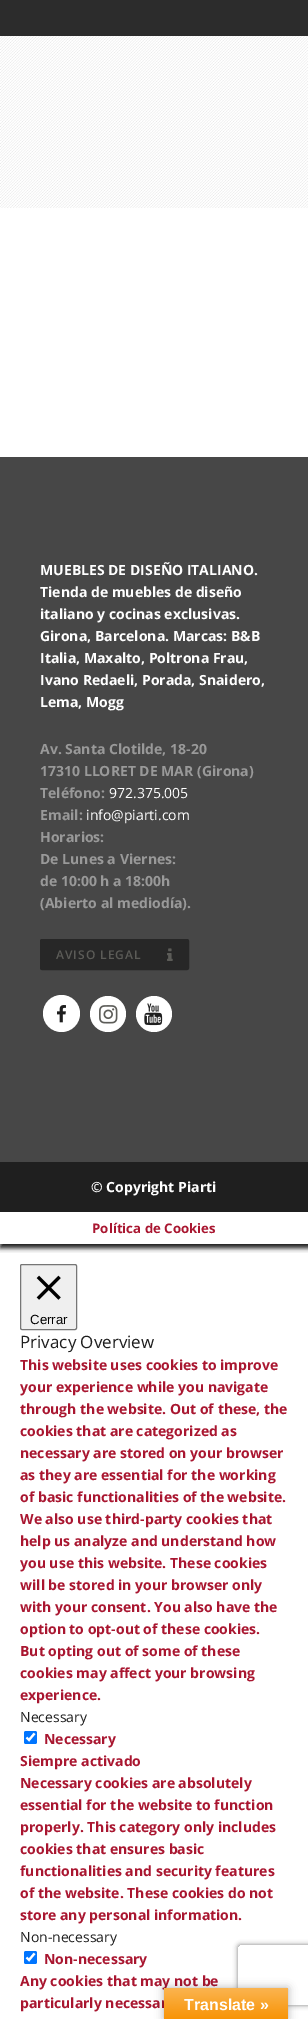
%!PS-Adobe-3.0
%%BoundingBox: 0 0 308 2019
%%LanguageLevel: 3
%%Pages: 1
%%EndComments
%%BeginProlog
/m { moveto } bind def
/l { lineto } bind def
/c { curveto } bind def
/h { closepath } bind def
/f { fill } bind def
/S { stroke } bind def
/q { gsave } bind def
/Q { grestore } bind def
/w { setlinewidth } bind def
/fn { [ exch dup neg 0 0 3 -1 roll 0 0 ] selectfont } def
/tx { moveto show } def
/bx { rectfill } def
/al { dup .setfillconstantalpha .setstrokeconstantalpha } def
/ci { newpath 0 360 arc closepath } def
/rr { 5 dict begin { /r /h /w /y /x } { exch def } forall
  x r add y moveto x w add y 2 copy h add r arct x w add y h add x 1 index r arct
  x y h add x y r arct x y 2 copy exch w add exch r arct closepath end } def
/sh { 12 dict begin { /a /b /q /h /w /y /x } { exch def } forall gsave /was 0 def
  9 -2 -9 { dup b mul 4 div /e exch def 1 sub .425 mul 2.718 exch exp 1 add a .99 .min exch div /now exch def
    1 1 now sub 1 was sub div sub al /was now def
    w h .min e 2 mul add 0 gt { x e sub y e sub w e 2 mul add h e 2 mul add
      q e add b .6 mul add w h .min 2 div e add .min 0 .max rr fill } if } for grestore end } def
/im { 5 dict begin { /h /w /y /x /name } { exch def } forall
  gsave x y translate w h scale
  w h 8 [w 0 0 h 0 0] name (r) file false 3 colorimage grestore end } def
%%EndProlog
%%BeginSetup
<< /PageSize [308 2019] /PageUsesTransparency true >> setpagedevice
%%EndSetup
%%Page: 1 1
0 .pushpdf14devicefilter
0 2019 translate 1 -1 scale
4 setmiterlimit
1 setgray
0 0 308 2019 bx
0.173 setgray
0 0 308 36 bx
(image0.raw) 0 36 308 172 im
0.278 setgray
0 457 308 705 bx
/OpenSans-Bold 14 fn
1 setgray
(MUEBLES DE DISEÑO ITALIANO.) 40 575 tx
(Tienda de muebles de diseño) 40 597 tx
(italiano y cocinas exclusivas.) 40 619 tx
(Girona, Barcelona. Marcas: B&B) 40 641 tx
(Italia, Maxalto, Poltrona Frau,) 40 663 tx
(Ivano Redaeli, Porada, Snaidero,) 40 685 tx
(Lema, Mogg) 40 707 tx
0.6 setgray
(Av. Santa Clotilde, 18-20) 40 754 tx
(17310 LLORET DE MAR \(Girona\)) 40 776 tx
(Teléfono:) 40 798 tx
/OpenSans-Regular 14 fn
1 setgray
(972.375.005) 109 798 tx
/OpenSans-Bold 14 fn
0.6 setgray
(Email:) 40 820 tx
/OpenSans-Regular 14 fn
1 setgray
(info@piarti.com) 86 820 tx
/OpenSans-Bold 14 fn
0.6 setgray
(Horarios:) 40 842 tx
(De Lunes a Viernes:) 40 864 tx
(de 10:00 h a 18:00h) 40 886 tx
(\(Abierto al mediodía\).) 40 908 tx
0.153 setgray
40.5 939.5 148 30 1.5 rr q f Q
S
/OpenSans-SemiBold 12 fn
0.361 0.361 0.345 setrgbcolor
56 959 m 1 0 (AVISO LEGAL) ashow
(image1.raw) 167 948 6 13 im
1 setgray
61.5 1013.5 18.5 ci f
(image2.raw) 57 1005 9 18 im
108 1014 18 ci f
(image3.raw) 99 1005 19 19 im
154 1014 18 ci f
(image4.raw) 144 1003 19 23 im
q
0 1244 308 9 rectclip
0.086 setgray
0 1212 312 36 0 2.5 1 sh
Q
0.122 setgray
0 1162 308 50 bx
/OpenSans-Bold 14 fn
1 setgray
(© Copyright Piarti) 91 1192 tx
/OpenSans-Bold 13.25 fn
0.663 0.086 0.188 setrgbcolor
(Política de Cookies) 92 1233 tx
0.937 setgray
20.5 1264.5 56 65 1.5 rr q f Q
0.463 setgray
S
(image5.raw) 36 1275 25 25 im
/LiberationSans-Regular 13.25 fn
0 setgray
(Cerrar) 30 1324 tx
/OpenSans-Regular 17 fn
0.118 setgray
(Privacy Overview) 20 1348 tx
/OpenSans-Bold 14 fn
0.663 0.086 0.188 setrgbcolor
(This website uses cookies to improve) 20 1370 tx
(your experience while you navigate) 20 1392 tx
(through the website. Out of these, the) 20 1414 tx
(cookies that are categorized as) 20 1436 tx
(necessary are stored on your browser) 20 1458 tx
(as they are essential for the working) 20 1480 tx
(of basic functionalities of the website.) 20 1502 tx
(We also use third-party cookies that) 20 1524 tx
(help us analyze and understand how) 20 1546 tx
(you use this website. These cookies) 20 1568 tx
(will be stored in your browser only) 20 1590 tx
(with your consent. You also have the) 20 1612 tx
(option to opt-out of these cookies.) 20 1634 tx
(But opting out of some of these) 20 1656 tx
(cookies may affect your browsing) 20 1678 tx
(experience.) 20 1700 tx
/OpenSans-Regular 14 fn
0.118 setgray
(Necessary) 20 1722 tx
0 0.459 1 setrgbcolor
24 1731 13 13 2 rr f
1 setgray
2.1 w
26.5 1737.5 m 29 1740 l 34.5 1733.5 l S
/OpenSans-Bold 14 fn
0.663 0.086 0.188 setrgbcolor
(Necessary) 44 1744 tx
(Siempre activado) 20 1766 tx
(Necessary cookies are absolutely) 20 1788 tx
(essential for the website to function) 20 1810 tx
(properly. This category only includes) 20 1832 tx
(cookies that ensures basic) 20 1854 tx
(functionalities and security features) 20 1876 tx
(of the website. These cookies do not) 20 1898 tx
(store any personal information.) 20 1920 tx
/OpenSans-Regular 14 fn
0.118 setgray
(Non-necessary) 20 1942 tx
0 0.459 1 setrgbcolor
24 1951 13 13 2 rr f
1 setgray
26.5 1957.5 m 29 1960 l 34.5 1953.5 l S
/OpenSans-Bold 14 fn
0.663 0.086 0.188 setrgbcolor
(Non-necessary) 44 1964 tx
(Any cookies that may not be) 20 1986 tx
(particularly necessar) 20 2008 tx
0 setgray
164 1988 124 31 0 4.5 0.3 sh
q
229 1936 m 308 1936 l 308 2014 l 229 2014 l h 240 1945 m 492 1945 l 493 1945 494 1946 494 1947 c 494 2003 l 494 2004 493 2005 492 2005 c 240 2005 l 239 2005 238 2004 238 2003 c 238 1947 l 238 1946 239 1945 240 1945 c h eoclip newpath
0.502 setgray
238 1945 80 60 2 2.5 1 sh
Q
q 164 1988 m 288 1988 l 288 2019 l 164 2019 l h clip newpath
<< /ShadingType 2 /ColorSpace /DeviceRGB /Coords [226 1988 226 2019] /Extend [true true] /Function << /FunctionType 2 /Domain [0 1] /C0 [0.984 0.706 0.314] /C1 [0.973 0.58 0.024] /N 1 >> >> shfill Q
/LiberationSans-Bold 16 fn
1 setgray
(Translate ») 184 2010 tx
.poppdf14devicefilter showpage
%%EOF
